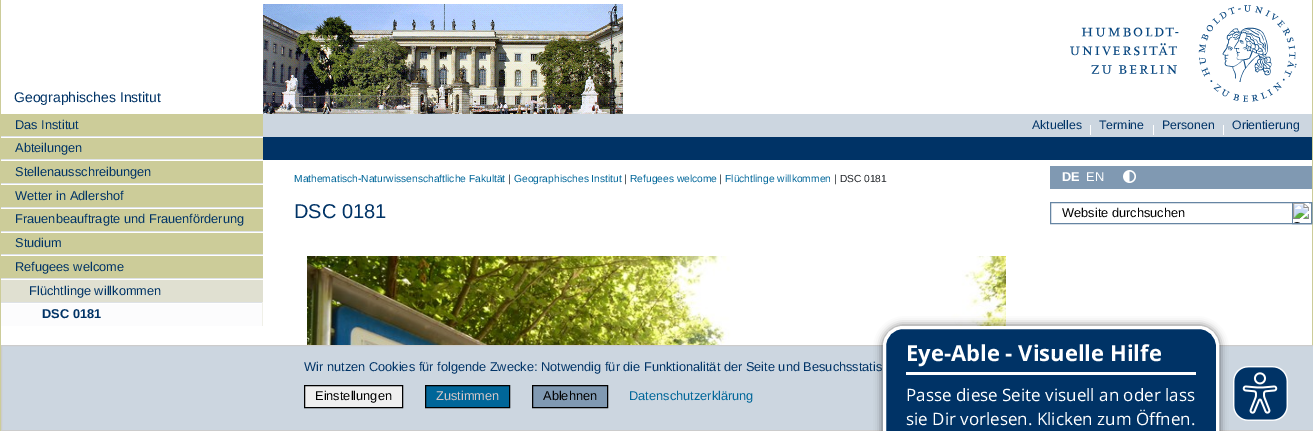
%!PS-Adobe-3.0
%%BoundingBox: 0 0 1313 431
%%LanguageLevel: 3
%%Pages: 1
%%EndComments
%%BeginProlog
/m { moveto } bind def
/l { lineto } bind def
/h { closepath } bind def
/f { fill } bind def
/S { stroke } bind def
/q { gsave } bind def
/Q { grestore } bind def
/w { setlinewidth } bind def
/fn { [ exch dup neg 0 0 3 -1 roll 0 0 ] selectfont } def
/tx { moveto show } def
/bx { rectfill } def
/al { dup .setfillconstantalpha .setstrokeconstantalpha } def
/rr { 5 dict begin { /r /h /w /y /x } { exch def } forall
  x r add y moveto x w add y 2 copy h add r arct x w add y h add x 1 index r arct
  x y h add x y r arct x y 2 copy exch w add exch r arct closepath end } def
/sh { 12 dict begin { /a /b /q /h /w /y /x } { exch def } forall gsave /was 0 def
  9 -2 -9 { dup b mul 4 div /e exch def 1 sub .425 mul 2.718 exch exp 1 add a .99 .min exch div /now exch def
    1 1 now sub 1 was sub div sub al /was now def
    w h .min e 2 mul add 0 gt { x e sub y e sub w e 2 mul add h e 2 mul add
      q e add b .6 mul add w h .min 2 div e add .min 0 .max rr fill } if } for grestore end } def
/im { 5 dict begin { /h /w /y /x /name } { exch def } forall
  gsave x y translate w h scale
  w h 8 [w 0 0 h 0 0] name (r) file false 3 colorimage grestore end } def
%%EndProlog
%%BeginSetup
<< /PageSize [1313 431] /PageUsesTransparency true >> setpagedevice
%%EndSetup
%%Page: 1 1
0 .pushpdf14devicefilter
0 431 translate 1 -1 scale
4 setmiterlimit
1 setgray
0 0 1313 431 bx
(image0.raw) 263 4 360 110 im
(image1.raw) 1070 5 227 97 im
0.8 0.8 0.6 setrgbcolor
1312 0 1 345 bx
0 0 1 431 bx
/LiberationSans-Regular 14 fn
0 0.2 0.4 setrgbcolor
(Geographisches Institut) 14 102 tx
0.8 0.8 0.6 setrgbcolor
1 114 262 22 bx
/LiberationSans-Regular 12.8 fn
0 0.2 0.4 setrgbcolor
(Das Institut) 15 129 tx
0.8 0.8 0.6 setrgbcolor
1 138 262 21 bx
0.871 0.886 0.902 setrgbcolor
1 136 262 1 bx
0 0.2 0.4 setrgbcolor
(Abteilungen) 15 152 tx
0.8 0.8 0.6 setrgbcolor
1 161 262 22 bx
0.871 0.886 0.902 setrgbcolor
1 159 262 1 bx
0 0.2 0.4 setrgbcolor
(Stellenausschreibungen) 15 176 tx
0.8 0.8 0.6 setrgbcolor
1 185 262 22 bx
0.871 0.886 0.902 setrgbcolor
1 183 262 1 bx
0 0.2 0.4 setrgbcolor
(Wetter in Adlershof) 15 200 tx
0.8 0.8 0.6 setrgbcolor
1 209 262 22 bx
0.871 0.886 0.902 setrgbcolor
1 207 262 1 bx
0 0.2 0.4 setrgbcolor
(Frauenbeauftragte und Frauenförderung) 15 223 tx
0.8 0.8 0.6 setrgbcolor
1 233 262 21 bx
0.871 0.886 0.902 setrgbcolor
1 231 262 1 bx
0 0.2 0.4 setrgbcolor
(Studium) 15 247 tx
0.8 0.8 0.6 setrgbcolor
1 256 262 22 bx
0.871 0.886 0.902 setrgbcolor
1 254 262 1 bx
0 0.2 0.4 setrgbcolor
(Refugees welcome) 15 271 tx
0.878 0.878 0.82 setrgbcolor
1 280 262 22 bx
0.871 0.886 0.902 setrgbcolor
1 278 262 1 bx
0 0.2 0.4 setrgbcolor
(Flüchtlinge willkommen) 29 295 tx
0.871 0.886 0.902 setrgbcolor
1 302 262 1 bx
0.941 0.941 0.91 setrgbcolor
262 302 1 24 bx
0.988 0.988 0.992 setrgbcolor
1 304 261 22 bx
/LiberationSans-Bold 12.8 fn
0 0.2 0.4 setrgbcolor
(DSC 0181) 42 318 tx
0.8 0.839 0.878 setrgbcolor
263 114 1049 23 bx
/LiberationSans-Regular 12.25 fn
0 0.2 0.4 setrgbcolor
(Aktuelles) 1032 129 tx
1 setgray
1090 125 1 10 bx
0 0.2 0.4 setrgbcolor
(Termine) 1099 129 tx
1 setgray
1153 125 1 10 bx
0 0.2 0.4 setrgbcolor
(Personen) 1162 129 tx
1 setgray
1223 125 1 10 bx
0 0.2 0.4 setrgbcolor
(Orientierung) 1232 129 tx
263 137 1049 23 bx
/LiberationSans-Regular 10.25 fn
0 0.4 0.6 setrgbcolor
(Mathematisch-Naturwissenschaftliche Fakultät) 294 182 tx
0.129 0.145 0.161 setrgbcolor
(|) 508 182 tx
0 0.4 0.6 setrgbcolor
(Geographisches Institut) 514 182 tx
0.129 0.145 0.161 setrgbcolor
(|) 624 182 tx
0 0.4 0.6 setrgbcolor
(Refugees welcome) 630 182 tx
0.129 0.145 0.161 setrgbcolor
(|) 719 182 tx
0 0.4 0.6 setrgbcolor
(Flüchtlinge willkommen) 725 182 tx
0.129 0.145 0.161 setrgbcolor
(| DSC 0181) 834 182 tx
/LiberationSans-Regular 20 fn
0 0.2 0.4 setrgbcolor
(DSC 0181) 294 218 tx
(image2.raw) 307 256 699 89 im
0.502 0.6 0.698 setrgbcolor
1050 166 262 23 bx
/LiberationSans-Bold 12.8 fn
1 setgray
(DE) 1062 181 tx
/LiberationSans-Regular 12.8 fn
(EN) 1086 181 tx
(image3.raw) 1123 170 13 13 im
0.4 0.522 0.639 setrgbcolor
1050.5 202.5 261 21 rectstroke
0 setgray
(Website durchsuchen) 1062 217 tx
0.4 0.522 0.639 setrgbcolor
1292.5 202.5 19 21 rectstroke
(image4.raw) 1293 203 16 20 im
0.8 0.839 0.878 setrgbcolor
1.5 345.5 m 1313.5 345.5 l 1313.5 430.5 l 1.5 430.5 l h q f Q
0.8 setgray
S
0 0.2 0.4 setrgbcolor
(Wir nutzen Cookies für folgende Zwecke: Notwendig für die Funktionalität der Seite und Besuchsstatis) 304 371 tx
0.937 setgray
304.5 385.5 m 402.5 385.5 l 402.5 407.5 l 304.5 407.5 l h q f Q
0 setgray
S
(Einstellungen) 315 400 tx
0 0.4 0.6 setrgbcolor
425.5 385.5 m 509.5 385.5 l 509.5 407.5 l 425.5 407.5 l h q f Q
0 setgray
S
0.835 0.78 0.78 setrgbcolor
(Zustimmen) 436 400 tx
0.502 0.6 0.698 setrgbcolor
532.5 385.5 m 607.5 385.5 l 607.5 407.5 l 532.5 407.5 l h q f Q
0 setgray
S
(Ablehnen) 543 400 tx
0 0.4 0.6 setrgbcolor
(Datenschutzerklärung) 629 400 tx
0 setgray
882 325 338 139 21 4 0.5 sh
0 0.2 0.4 setrgbcolor
884.5 327.5 333 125 18.5 rr q f Q
1 setgray
3 w
S
906 372 290 3 bx
/OpenSans-Bold 22 fn
(Eye-Able - Visuelle Hilfe) 906 361 tx
/OpenSans-Regular 17 fn
(Passe diese Seite visuell an oder lass) 906 401 tx
(sie Dir vorlesen. Klicken zum Öffnen.) 906 425 tx
(image5.raw) 1233 366 55 55 im
.poppdf14devicefilter showpage
%%EOF
